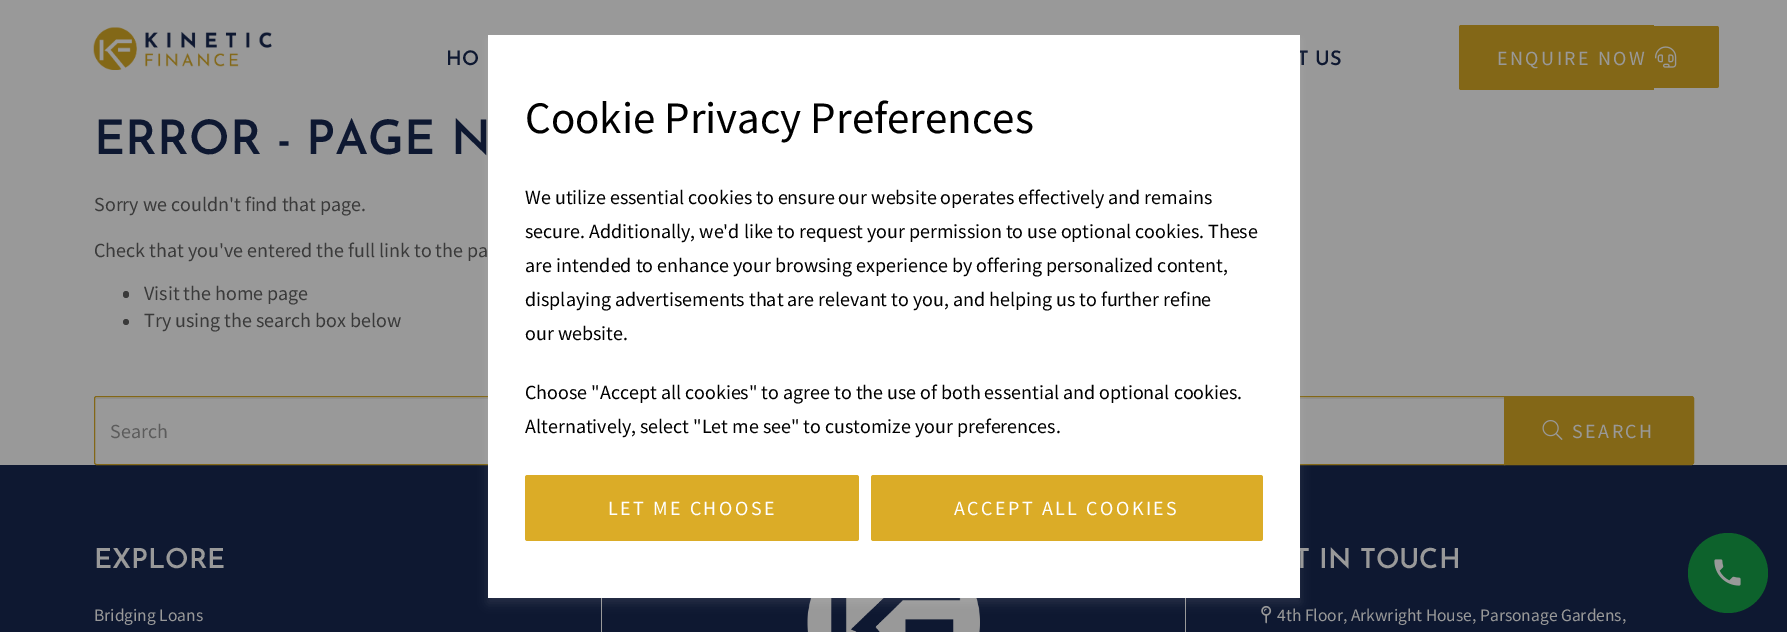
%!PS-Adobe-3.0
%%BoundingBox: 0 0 1787 632
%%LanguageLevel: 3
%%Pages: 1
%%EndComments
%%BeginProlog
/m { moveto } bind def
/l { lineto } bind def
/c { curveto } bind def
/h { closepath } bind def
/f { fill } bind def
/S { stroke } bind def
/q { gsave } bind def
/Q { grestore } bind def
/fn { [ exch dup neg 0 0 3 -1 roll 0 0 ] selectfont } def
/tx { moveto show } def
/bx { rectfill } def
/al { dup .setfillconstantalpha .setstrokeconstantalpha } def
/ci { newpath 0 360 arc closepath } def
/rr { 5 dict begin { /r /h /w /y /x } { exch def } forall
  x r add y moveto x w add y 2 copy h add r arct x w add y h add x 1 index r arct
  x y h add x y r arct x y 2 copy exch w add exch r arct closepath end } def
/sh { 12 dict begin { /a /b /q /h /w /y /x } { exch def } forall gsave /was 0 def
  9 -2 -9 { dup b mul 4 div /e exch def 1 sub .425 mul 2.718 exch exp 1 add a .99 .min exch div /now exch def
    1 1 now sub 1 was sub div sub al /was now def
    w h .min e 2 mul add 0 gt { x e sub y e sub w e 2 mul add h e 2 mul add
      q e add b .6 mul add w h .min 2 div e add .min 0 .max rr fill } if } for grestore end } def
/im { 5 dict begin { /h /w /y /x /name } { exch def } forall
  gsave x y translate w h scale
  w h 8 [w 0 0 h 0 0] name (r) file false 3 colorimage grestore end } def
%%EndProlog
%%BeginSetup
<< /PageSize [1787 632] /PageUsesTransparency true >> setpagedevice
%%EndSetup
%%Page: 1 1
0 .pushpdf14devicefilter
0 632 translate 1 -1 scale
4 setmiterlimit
0.6 setgray
0 0 1787 632 bx
(image0.raw) 93 27 179 43 im
/JosefinSans-Thin 20 fn
0.055 0.094 0.192 setrgbcolor
(HO) 446 65 tx
(T US) 1297 65 tx
0.514 0.404 0.09 setrgbcolor
1461.5 25 m 1654 25 l 1654 90 l 1461.5 90 l 1460 90 1459 89 1459 87.5 c 1459 27.5 l 1459 26 1460 25 1461.5 25 c h f
1460 25 2 1 bx
1460 89 2 1 bx
1459 26 1 63 bx
1654 26 m 1716.5 26 l 1718 26 1719 27 1719 28.5 c 1719 85.5 l 1719 87 1718 88 1716.5 88 c 1654 88 l h f
1716 26 2 1 bx
1718 28 1 58 bx
/SourceSansPro-Regular 20 fn
0.6 setgray
1497 65 m 2.5 0 (ENQUIRE NOW) ashow
(image1.raw) 1655 46 22 22 im
0.055 0.094 0.192 setrgbcolor
0 465 1787 167 bx
0.051 0.384 0.173 setrgbcolor
1728 573 40 ci f
(image2.raw) 1714 559 27 27 im
0.557 setgray
96 399 m 1504 399 l 1504 398 l 96 398 l 95 399 l 95 400 l h f
0.514 0.404 0.09 setrgbcolor
96.5 396.5 m 1504.5 396.5 l 1504.5 464.5 l 96.5 464.5 l 95.5 464.5 94.5 463.5 94.5 462.5 c 94.5 398.5 l 94.5 397.5 95.5 396.5 96.5 396.5 c h S
0.6 setgray
601 598 1 34 bx
(image4.raw) 807 598 173 34 im
1185 598 1 34 bx
(image5.raw) 1261 605 11 19 im
1 setgray
488 40 812 563 0 5 0.1 sh
/JosefinSans-Thin 27.5 fn
0.6 setgray
(T IN TOUCH) 1294 568 tx
1 setgray
488 35 812 563 bx
/SourceSansPro-Regular 45 fn
0 setgray
(Cookie Privacy Preferences) 525 133 tx
/SourceSansPro-Regular 20 fn
(We utilize essential cookies to ensure our website operates effectively and remains) 525 204 tx
(secure. Additionally, we'd like to request your permission to use optional cookies. These) 525 238 tx
(are intended to enhance your browsing experience by offering personalized content,) 525 272 tx
(displaying advertisements that are relevant to you, and helping us to further refine) 525 306 tx
(our website.) 525 340 tx
(Choose "Accept all cookies" to agree to the use of both essential and optional cookies.) 525 399 tx
(Alternatively, select "Let me see" to customize your preferences.) 525 433 tx
0.859 0.675 0.153 setrgbcolor
525 475 334 66 2.5 rr f
1 setgray
608 515 m 2.5 0 (LET ME CHOOSE) ashow
0.859 0.675 0.153 setrgbcolor
871 475 392 66 2.5 rr f
1 setgray
954 515 m 2.5 0 (ACCEPT ALL COOKIES) ashow
/JosefinSans-Thin 47.5 fn
0.055 0.094 0.192 setrgbcolor
(ERROR - PAGE N) 94 154 tx
/SourceSansPro-Regular 20 fn
0.227 setgray
(Sorry we couldn't find that page.) 94 211 tx
(Check that you've entered the full link to the pa) 94 257 tx
123 291 6 7 3 rr f
(Visit the home page) 144 300 tx
126 322 3 ci f
(Try using the search box below) 144 327 tx
0.361 setgray
(Search) 110 438 tx
0.514 0.404 0.09 setrgbcolor
1504.5 396.5 m 1691.5 396.5 l 1692.5 396.5 1693.5 397.5 1693.5 398.5 c 1693.5 462.5 l 1693.5 463.5 1692.5 464.5 1691.5 464.5 c 1504.5 464.5 l h q f Q
S
(image3.raw) 1542 420 21 20 im
0.6 setgray
1572 438 m 2.5 0 (SEARCH) ashow
/JosefinSans-Thin 27.5 fn
(EXPLORE) 94 568 tx
/SourceSansPro-Regular 17.5 fn
(Bridging Loans) 94 621 tx
(4th Floor, Arkwright House, Parsonage Gardens,) 1277 621 tx
.poppdf14devicefilter showpage
%%EOF
